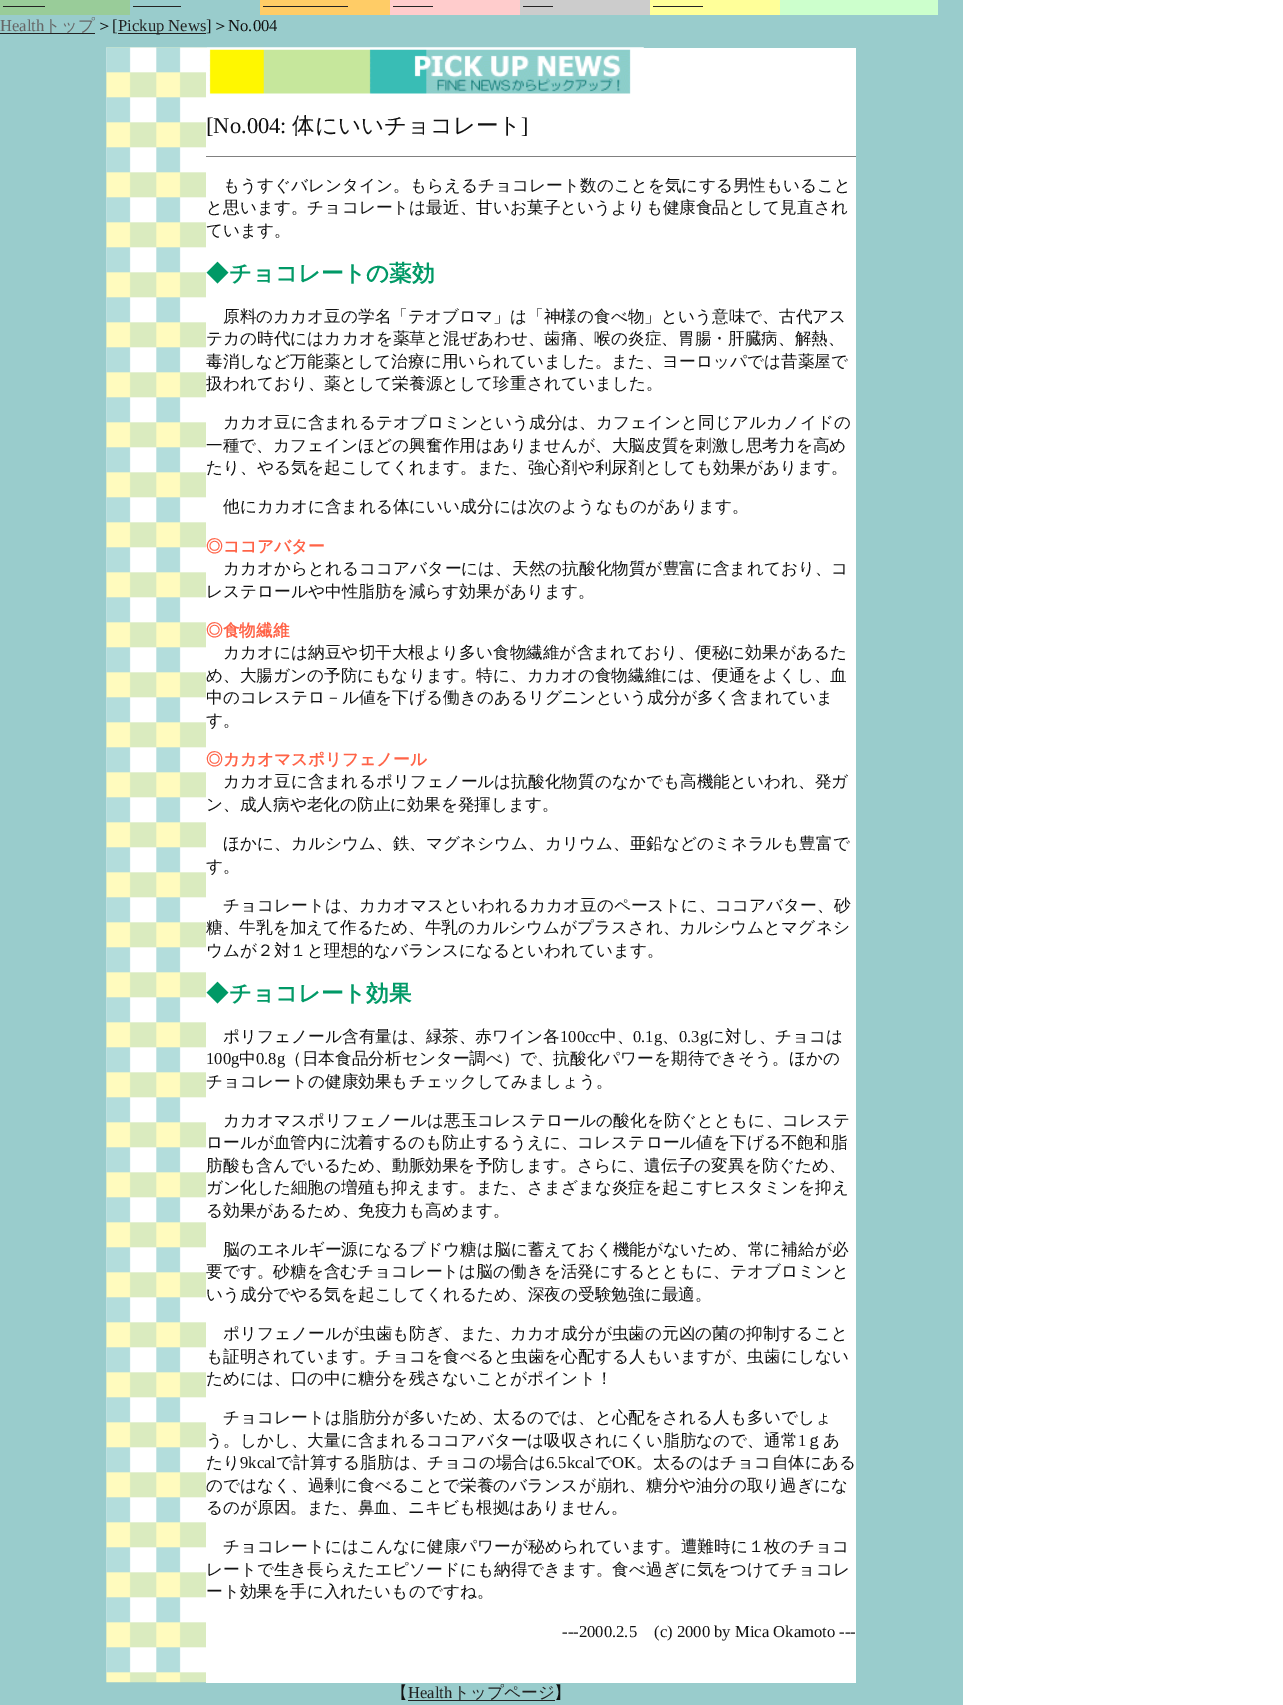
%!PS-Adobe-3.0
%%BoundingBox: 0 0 1283 1705
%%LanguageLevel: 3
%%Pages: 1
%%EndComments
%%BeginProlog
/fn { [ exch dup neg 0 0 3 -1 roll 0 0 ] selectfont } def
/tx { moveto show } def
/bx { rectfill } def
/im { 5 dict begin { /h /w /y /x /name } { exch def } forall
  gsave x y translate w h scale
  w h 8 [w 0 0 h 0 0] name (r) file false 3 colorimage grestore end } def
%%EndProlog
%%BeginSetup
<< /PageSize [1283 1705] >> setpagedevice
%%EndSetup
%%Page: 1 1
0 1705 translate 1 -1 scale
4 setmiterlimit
1 setgray
0 0 1283 1705 bx
0.6 0.8 0.8 setrgbcolor
0 0 963 1705 bx
0.6 0.8 0.6 setrgbcolor
0 0 130 15 bx
0.133 setgray
3 6 42 1 bx
133 6 48 1 bx
1 0.8 0.4 setrgbcolor
260 0 130 15 bx
0.133 setgray
263 6 85 1 bx
1 0.8 0.8 setrgbcolor
390 0 130 15 bx
0.133 setgray
393 6 40 1 bx
0.8 setgray
520 0 130 15 bx
0.133 setgray
523 6 30 1 bx
1 1 0.6 setrgbcolor
650 0 130 15 bx
0.133 setgray
653 6 50 1 bx
0.8 1 0.8 setrgbcolor
780 0 158 15 bx
/LiberationSerif-Regular 16.65 fn
0.4 setgray
(Health) 0 31 tx
0.133 setgray
0 33 95 1 bx
/WenQuanYiZenHei-Medium 16.65 fn
0.4 setgray
(トップ) 44 31 tx
0.067 setgray
(＞) 96 31 tx
/LiberationSerif-Regular 16.65 fn
([) 112 31 tx
0.133 setgray
118 33 88 1 bx
(Pickup News) 118 31 tx
0.067 setgray
(]) 206 31 tx
/WenQuanYiZenHei-Medium 16.65 fn
(＞) 212 31 tx
/LiberationSerif-Regular 16.65 fn
(No.004) 228 31 tx
(image0.raw) 106 47 101 1636 im
1 setgray
206 48 650 1635 bx
(image1.raw) 206 47 438 48 im
/LiberationSerif-Regular 22.5 fn
0.067 setgray
([No.004:) 206 133 tx
/WenQuanYiZenHei-Medium 22.5 fn
(体にいいチョコレート) 292 133 tx
/LiberationSerif-Regular 22.5 fn
(]) 521 133 tx
0.502 setgray
206 156 650 1 bx
/WenQuanYiZenHei-Medium 16.65 fn
0.067 setgray
(もうすぐバレンタイン。もらえるチョコレート数のことを気にする男性もいること) 223 191 tx
(と思います。チョコレートは最近、甘いお菓子というよりも健康食品として見直され) 206 213 tx
(ています。) 206 236 tx
/WenQuanYiZenHei-Bold 22.5 fn
0 0.6 0.4 setrgbcolor
(◆チョコレートの薬効) 206 281 tx
/WenQuanYiZenHei-Medium 16.65 fn
0.067 setgray
(原料のカカオ豆の学名「テオブロマ」は「神様の食べ物」という意味で、古代アス) 223 322 tx
(テカの時代にはカカオを薬草と混ぜあわせ、歯痛、喉の炎症、胃腸・肝臓病、解熱、) 206 344 tx
(毒消しなど万能薬として治療に用いられていました。また、ヨーロッパでは昔薬屋で) 206 367 tx
(扱われており、薬として栄養源として珍重されていました。) 206 389 tx
(カカオ豆に含まれるテオブロミンという成分は、カフェインと同じアルカノイドの) 223 428 tx
(一種で、カフェインほどの興奮作用はありませんが、大脳皮質を刺激し思考力を高め) 206 451 tx
(たり、やる気を起こしてくれます。また、強心剤や利尿剤としても効果があります。) 206 473 tx
(他にカカオに含まれる体にいい成分には次のようなものがあります。) 223 512 tx
/WenQuanYiZenHei-Bold 16.65 fn
1 0.388 0.278 setrgbcolor
(◎ココアバター) 206 552 tx
/WenQuanYiZenHei-Medium 16.65 fn
0.067 setgray
(カカオからとれるココアバターには、天然の抗酸化物質が豊富に含まれており、コ) 223 574 tx
(レステロールや中性脂肪を減らす効果があります。) 206 597 tx
/WenQuanYiZenHei-Bold 16.65 fn
1 0.388 0.278 setrgbcolor
(◎食物繊維) 206 636 tx
/WenQuanYiZenHei-Medium 16.65 fn
0.067 setgray
(カカオには納豆や切干大根より多い食物繊維が含まれており、便秘に効果があるた) 223 658 tx
(め、大腸ガンの予防にもなります。特に、カカオの食物繊維には、便通をよくし、血) 206 681 tx
(中のコレステロ－ル値を下げる働きのあるリグニンという成分が多く含まれていま) 206 703 tx
(す。) 206 726 tx
/WenQuanYiZenHei-Bold 16.65 fn
1 0.388 0.278 setrgbcolor
(◎カカオマスポリフェノール) 206 765 tx
/WenQuanYiZenHei-Medium 16.65 fn
0.067 setgray
(カカオ豆に含まれるポリフェノールは抗酸化物質のなかでも高機能といわれ、発ガ) 223 787 tx
(ン、成人病や老化の防止に効果を発揮します。) 206 810 tx
(ほかに、カルシウム、鉄、マグネシウム、カリウム、亜鉛などのミネラルも豊富で) 223 849 tx
(す。) 206 872 tx
(チョコレートは、カカオマスといわれるカカオ豆のペーストに、ココアバター、砂) 223 911 tx
(糖、牛乳を加えて作るため、牛乳のカルシウムがプラスされ、カルシウムとマグネシ) 206 933 tx
(ウムが２対１と理想的なバランスになるといわれています。) 206 956 tx
/WenQuanYiZenHei-Bold 22.5 fn
0 0.6 0.4 setrgbcolor
(◆チョコレート効果) 206 1001 tx
/WenQuanYiZenHei-Medium 16.65 fn
0.067 setgray
(ポリフェノール含有量は、緑茶、赤ワイン各) 223 1042 tx
/LiberationSerif-Regular 16.65 fn
(100cc) 560 1042 tx
/WenQuanYiZenHei-Medium 16.65 fn
(中、) 600 1042 tx
/LiberationSerif-Regular 16.65 fn
(0.1g) 633 1042 tx
/WenQuanYiZenHei-Medium 16.65 fn
(、) 662 1042 tx
/LiberationSerif-Regular 16.65 fn
(0.3g) 679 1042 tx
/WenQuanYiZenHei-Medium 16.65 fn
(に対し、チョコは) 708 1042 tx
/LiberationSerif-Regular 16.65 fn
(100g) 206 1064 tx
/WenQuanYiZenHei-Medium 16.65 fn
(中) 239 1064 tx
/LiberationSerif-Regular 16.65 fn
(0.8g) 256 1064 tx
/WenQuanYiZenHei-Medium 16.65 fn
(（日本食品分析センター調べ）で、抗酸化パワーを期待できそう。ほかの) 285 1064 tx
(チョコレートの健康効果もチェックしてみましょう。) 206 1087 tx
(カカオマスポリフェノールは悪玉コレステロールの酸化を防ぐとともに、コレステ) 223 1126 tx
(ロールが血管内に沈着するのも防止するうえに、コレステロール値を下げる不飽和脂) 206 1148 tx
(肪酸も含んでいるため、動脈効果を予防します。さらに、遺伝子の変異を防ぐため、) 206 1171 tx
(ガン化した細胞の増殖も抑えます。また、さまざまな炎症を起こすヒスタミンを抑え) 206 1193 tx
(る効果があるため、免疫力も高めます。) 206 1216 tx
(脳のエネルギー源になるブドウ糖は脳に蓄えておく機能がないため、常に補給が必) 223 1255 tx
(要です。砂糖を含むチョコレートは脳の働きを活発にするとともに、テオブロミンと) 206 1277 tx
(いう成分でやる気を起こしてくれるため、深夜の受験勉強に最適。) 206 1300 tx
(ポリフェノールが虫歯も防ぎ、また、カカオ成分が虫歯の元凶の菌の抑制すること) 223 1339 tx
(も証明されています。チョコを食べると虫歯を心配する人もいますが、虫歯にしない) 206 1362 tx
(ためには、口の中に糖分を残さないことがポイント！) 206 1384 tx
(チョコレートは脂肪分が多いため、太るのでは、と心配をされる人も多いでしょ) 223 1423 tx
(う。しかし、大量に含まれるココアバターは吸収されにくい脂肪なので、通常) 206 1446 tx
/LiberationSerif-Regular 16.65 fn
(1) 798 1446 tx
/WenQuanYiZenHei-Medium 16.65 fn
(ｇあ) 806 1446 tx
(たり) 206 1468 tx
/LiberationSerif-Regular 16.65 fn
(9kcal) 240 1468 tx
/WenQuanYiZenHei-Medium 16.65 fn
(で計算する脂肪は、チョコの場合は) 276 1468 tx
/LiberationSerif-Regular 16.65 fn
(6.5kcal) 546 1468 tx
/WenQuanYiZenHei-Medium 16.65 fn
(で) 595 1468 tx
/LiberationSerif-Regular 16.65 fn
(OK) 612 1468 tx
/WenQuanYiZenHei-Medium 16.65 fn
(。太るのはチョコ自体にある) 636 1468 tx
(のではなく、過剰に食べることで栄養のバランスが崩れ、糖分や油分の取り過ぎにな) 206 1491 tx
(るのが原因。また、鼻血、ニキビも根拠はありません。) 206 1513 tx
(チョコレートにはこんなに健康パワーが秘められています。遭難時に１枚のチョコ) 223 1552 tx
(レートで生き長らえたエピソードにも納得できます。食べ過ぎに気をつけてチョコレ) 206 1575 tx
(ート効果を手に入れたいものですね。) 206 1597 tx
/LiberationSerif-Regular 16.65 fn
(---2000.2.5) 562 1637 tx
(\(c\) 2000 by Mica Okamoto ---) 654 1637 tx
/WenQuanYiZenHei-Medium 16.65 fn
(【) 391 1698 tx
/LiberationSerif-Regular 16.65 fn
0.133 setgray
(Health) 408 1698 tx
408 1700 147 1 bx
/WenQuanYiZenHei-Medium 16.65 fn
(トップページ) 453 1698 tx
0.067 setgray
(】) 554 1698 tx
showpage
%%EOF
